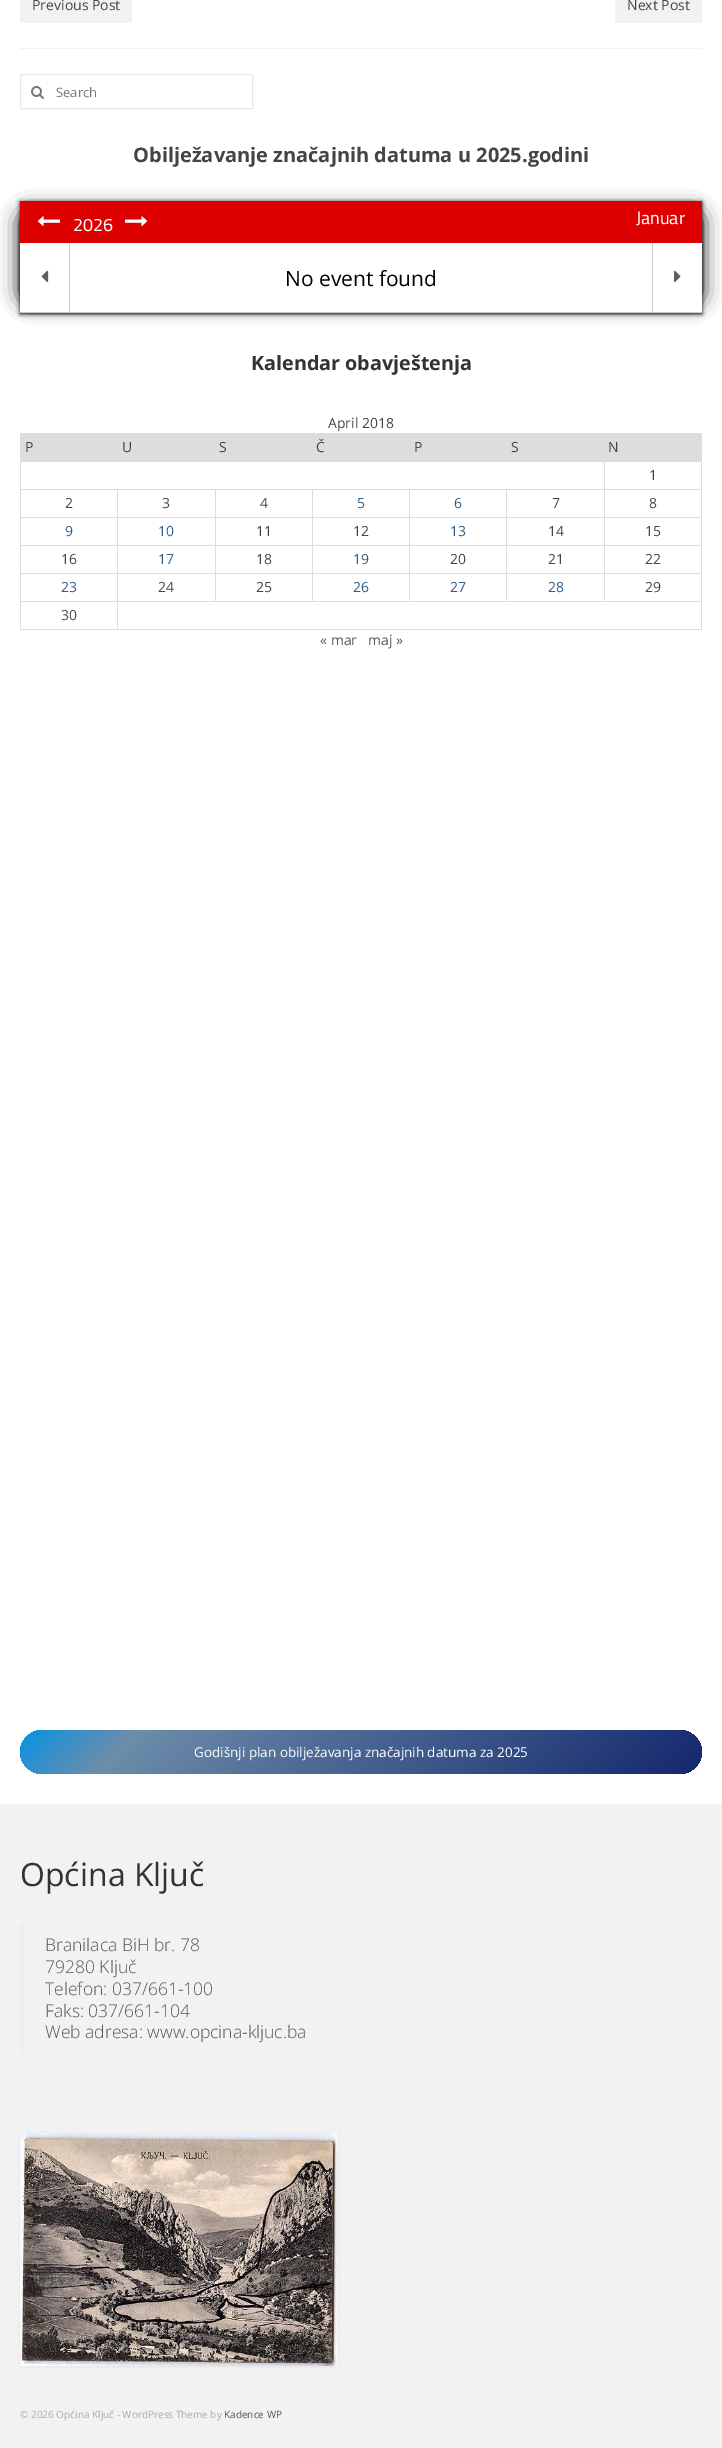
%!PS-Adobe-3.0
%%BoundingBox: 0 0 722 2448
%%LanguageLevel: 3
%%Pages: 1
%%EndComments
%%BeginProlog
/q { gsave } bind def
/Q { grestore } bind def
/fn { [ exch dup neg 0 0 3 -1 roll 0 0 ] selectfont } def
/tx { moveto show } def
/bx { rectfill } def
/al { dup .setfillconstantalpha .setstrokeconstantalpha } def
/rr { 5 dict begin { /r /h /w /y /x } { exch def } forall
  x r add y moveto x w add y 2 copy h add r arct x w add y h add x 1 index r arct
  x y h add x y r arct x y 2 copy exch w add exch r arct closepath end } def
/sh { 12 dict begin { /a /b /q /h /w /y /x } { exch def } forall gsave /was 0 def
  9 -2 -9 { dup b mul 4 div /e exch def 1 sub .425 mul 2.718 exch exp 1 add a .99 .min exch div /now exch def
    1 1 now sub 1 was sub div sub al /was now def
    w h .min e 2 mul add 0 gt { x e sub y e sub w e 2 mul add h e 2 mul add
      q e add b .6 mul add w h .min 2 div e add .min 0 .max rr fill } if } for grestore end } def
/im { 5 dict begin { /h /w /y /x /name } { exch def } forall
  gsave x y translate w h scale
  w h 8 [w 0 0 h 0 0] name (r) file false 3 colorimage grestore end } def
%%EndProlog
%%BeginSetup
<< /PageSize [722 2448] /PageUsesTransparency true >> setpagedevice
%%EndSetup
%%Page: 1 1
0 .pushpdf14devicefilter
0 2448 translate 1 -1 scale
4 setmiterlimit
1 setgray
0 0 722 2448 bx
0.949 setgray
20 48 682 1 bx
20 0 112 23 bx
/OpenSans-Regular 14 fn
0.267 setgray
(Previous Post) 32 10 tx
0.949 setgray
615 0 87 23 bx
0.267 setgray
(Next Post) 627 10 tx
0.906 setgray
20.5 74.5 232 34 rectstroke
(image0.raw) 31 86 13 13 im
/OpenSans-Regular 13 fn
0.459 setgray
(Search) 56 97 tx
/OpenSans-Bold 20 fn
0.267 setgray
(Obilježavanje značajnih datuma u 2025.godini) 133 162 tx
0 setgray
20 202 682 112 0 2 1 sh
20 211 682 92 10 10 1 sh
0.867 0 0 setrgbcolor
20 201 682 42 bx
(image1.raw) 37 216 23 10 im
/Cairo-Regular 18 fn
1 setgray
(2026) 73 231 tx
(image2.raw) 125 216 23 10 im
(Januar) 636 224 tx
20 243 682 69 bx
0.788 setgray
69 243 1 70 bx
(image3.raw) 41 270 8 13 im
/OpenSans-Regular 21 fn
0 setgray
(No event found) 285 286 tx
0.788 setgray
652 243 1 70 bx
(image4.raw) 674 270 7 13 im
20 312 682 1 bx
/OpenSans-Bold 19.75 fn
0.2 setgray
(Kalendar obavještenja) 251 370 tx
/OpenSans-Regular 14 fn
0.251 0.275 0.302 setrgbcolor
(April 2018) 328 428 tx
0.867 setgray
21 434 97 27 bx
20 433 98 1 bx
604 461 98 1 bx
604 489 98 1 bx
604 517 98 1 bx
604 545 98 1 bx
604 573 98 1 bx
117 601 585 1 bx
604 573 1 29 bx
506 573 99 1 bx
604 545 1 29 bx
506 545 99 1 bx
604 517 1 29 bx
506 517 99 1 bx
604 489 1 29 bx
506 489 99 1 bx
604 461 1 29 bx
20 461 585 1 bx
506 573 1 29 bx
409 573 98 1 bx
506 545 1 29 bx
409 545 98 1 bx
506 517 1 29 bx
409 517 98 1 bx
506 489 1 29 bx
409 489 98 1 bx
409 573 1 29 bx
312 573 98 1 bx
409 545 1 29 bx
312 545 98 1 bx
409 517 1 29 bx
312 517 98 1 bx
409 489 1 29 bx
312 489 98 1 bx
312 573 1 29 bx
215 573 98 1 bx
312 545 1 29 bx
215 545 98 1 bx
312 517 1 29 bx
215 517 98 1 bx
312 489 1 29 bx
215 489 98 1 bx
215 573 1 29 bx
117 573 99 1 bx
215 545 1 29 bx
117 545 99 1 bx
215 517 1 29 bx
117 517 99 1 bx
215 489 1 29 bx
117 489 99 1 bx
701 601 1 29 bx
117 629 585 1 bx
117 601 1 29 bx
20 601 98 1 bx
117 573 1 29 bx
20 573 98 1 bx
117 545 1 29 bx
20 545 98 1 bx
117 517 1 29 bx
20 517 98 1 bx
117 489 1 29 bx
20 489 98 1 bx
20 629 98 1 bx
20 601 1 29 bx
20 573 1 29 bx
20 545 1 29 bx
20 517 1 29 bx
20 489 1 29 bx
20 461 1 29 bx
20 433 1 29 bx
0.251 0.275 0.302 setrgbcolor
(P) 25 452 tx
0.867 setgray
118 433 584 28 bx
0.251 0.275 0.302 setrgbcolor
(U) 122 452 tx
(S) 219 452 tx
(Č) 316 452 tx
(P) 414 452 tx
(S) 511 452 tx
(N) 608 452 tx
0.867 setgray
701 573 1 29 bx
701 545 1 29 bx
701 517 1 29 bx
701 489 1 29 bx
701 461 1 29 bx
0.251 0.275 0.302 setrgbcolor
(1) 649 480 tx
(2) 65 508 tx
(3) 162 508 tx
(4) 260 508 tx
0.176 0.361 0.533 setrgbcolor
(5) 357 508 tx
(6) 454 508 tx
0.251 0.275 0.302 setrgbcolor
(7) 552 508 tx
(8) 649 508 tx
0.176 0.361 0.533 setrgbcolor
(9) 65 536 tx
(10) 158 536 tx
0.251 0.275 0.302 setrgbcolor
(11) 256 536 tx
(12) 353 536 tx
0.176 0.361 0.533 setrgbcolor
(13) 450 536 tx
0.251 0.275 0.302 setrgbcolor
(14) 548 536 tx
(15) 645 536 tx
(16) 61 564 tx
0.176 0.361 0.533 setrgbcolor
(17) 158 564 tx
0.251 0.275 0.302 setrgbcolor
(18) 256 564 tx
0.176 0.361 0.533 setrgbcolor
(19) 353 564 tx
0.251 0.275 0.302 setrgbcolor
(20) 450 564 tx
(21) 548 564 tx
(22) 645 564 tx
0.176 0.361 0.533 setrgbcolor
(23) 61 592 tx
0.251 0.275 0.302 setrgbcolor
(24) 158 592 tx
(25) 256 592 tx
0.176 0.361 0.533 setrgbcolor
(26) 353 592 tx
(27) 450 592 tx
(28) 548 592 tx
0.251 0.275 0.302 setrgbcolor
(29) 645 592 tx
(30) 61 620 tx
0.333 setgray
(« mar) 320 645 tx
(maj ») 368 645 tx
q 20 1730 682 44 22 rr clip newpath
<< /ShadingType 2 /ColorSpace /DeviceRGB /Coords [179 1571 543 1934] /Extend [true true] /Function << /FunctionType 3 /Domain [0 1] /Functions [<< /FunctionType 2 /Domain [0 1] /C0 [0.024 0.576 0.89] /C1 [0.424 0.553 0.671] /N 1 >> << /FunctionType 2 /Domain [0 1] /C0 [0.424 0.553 0.671] /C1 [0.078 0.153 0.427] /N 1 >>] /Bounds [0.16] /Encode [0 1 0 1] >> >> shfill Q
/OpenSans-Regular 13.5 fn
1 setgray
(Godišnji plan obilježavanja značajnih datuma za 2025) 194 1757 tx
0.949 setgray
0 1804 722 644 bx
/OpenSans-Regular 32 fn
0.2 setgray
(Općina Ključ) 20 1886 tx
0.933 setgray
20 1924 5 129 bx
/OpenSans-Light 17.5 fn
0.333 setgray
(Branilaca BiH br. 78) 45 1951 tx
(79280 Ključ) 45 1973 tx
(Telefon: 037/661-100) 45 1995 tx
(Faks: 037/661-104) 45 2017 tx
(Web adresa: www.opcina-kljuc.ba) 45 2038 tx
0 setgray
20 2134 318 233 0 1.5 0.06 sh
(image5.raw) 20 2133 318 233 im
/OpenSans-Regular 10 fn
0.667 setgray
(© 2026 Općina Ključ - WordPress Theme by) 20 2418 tx
0.333 setgray
(Kadence WP) 224 2418 tx
.poppdf14devicefilter showpage
%%EOF
